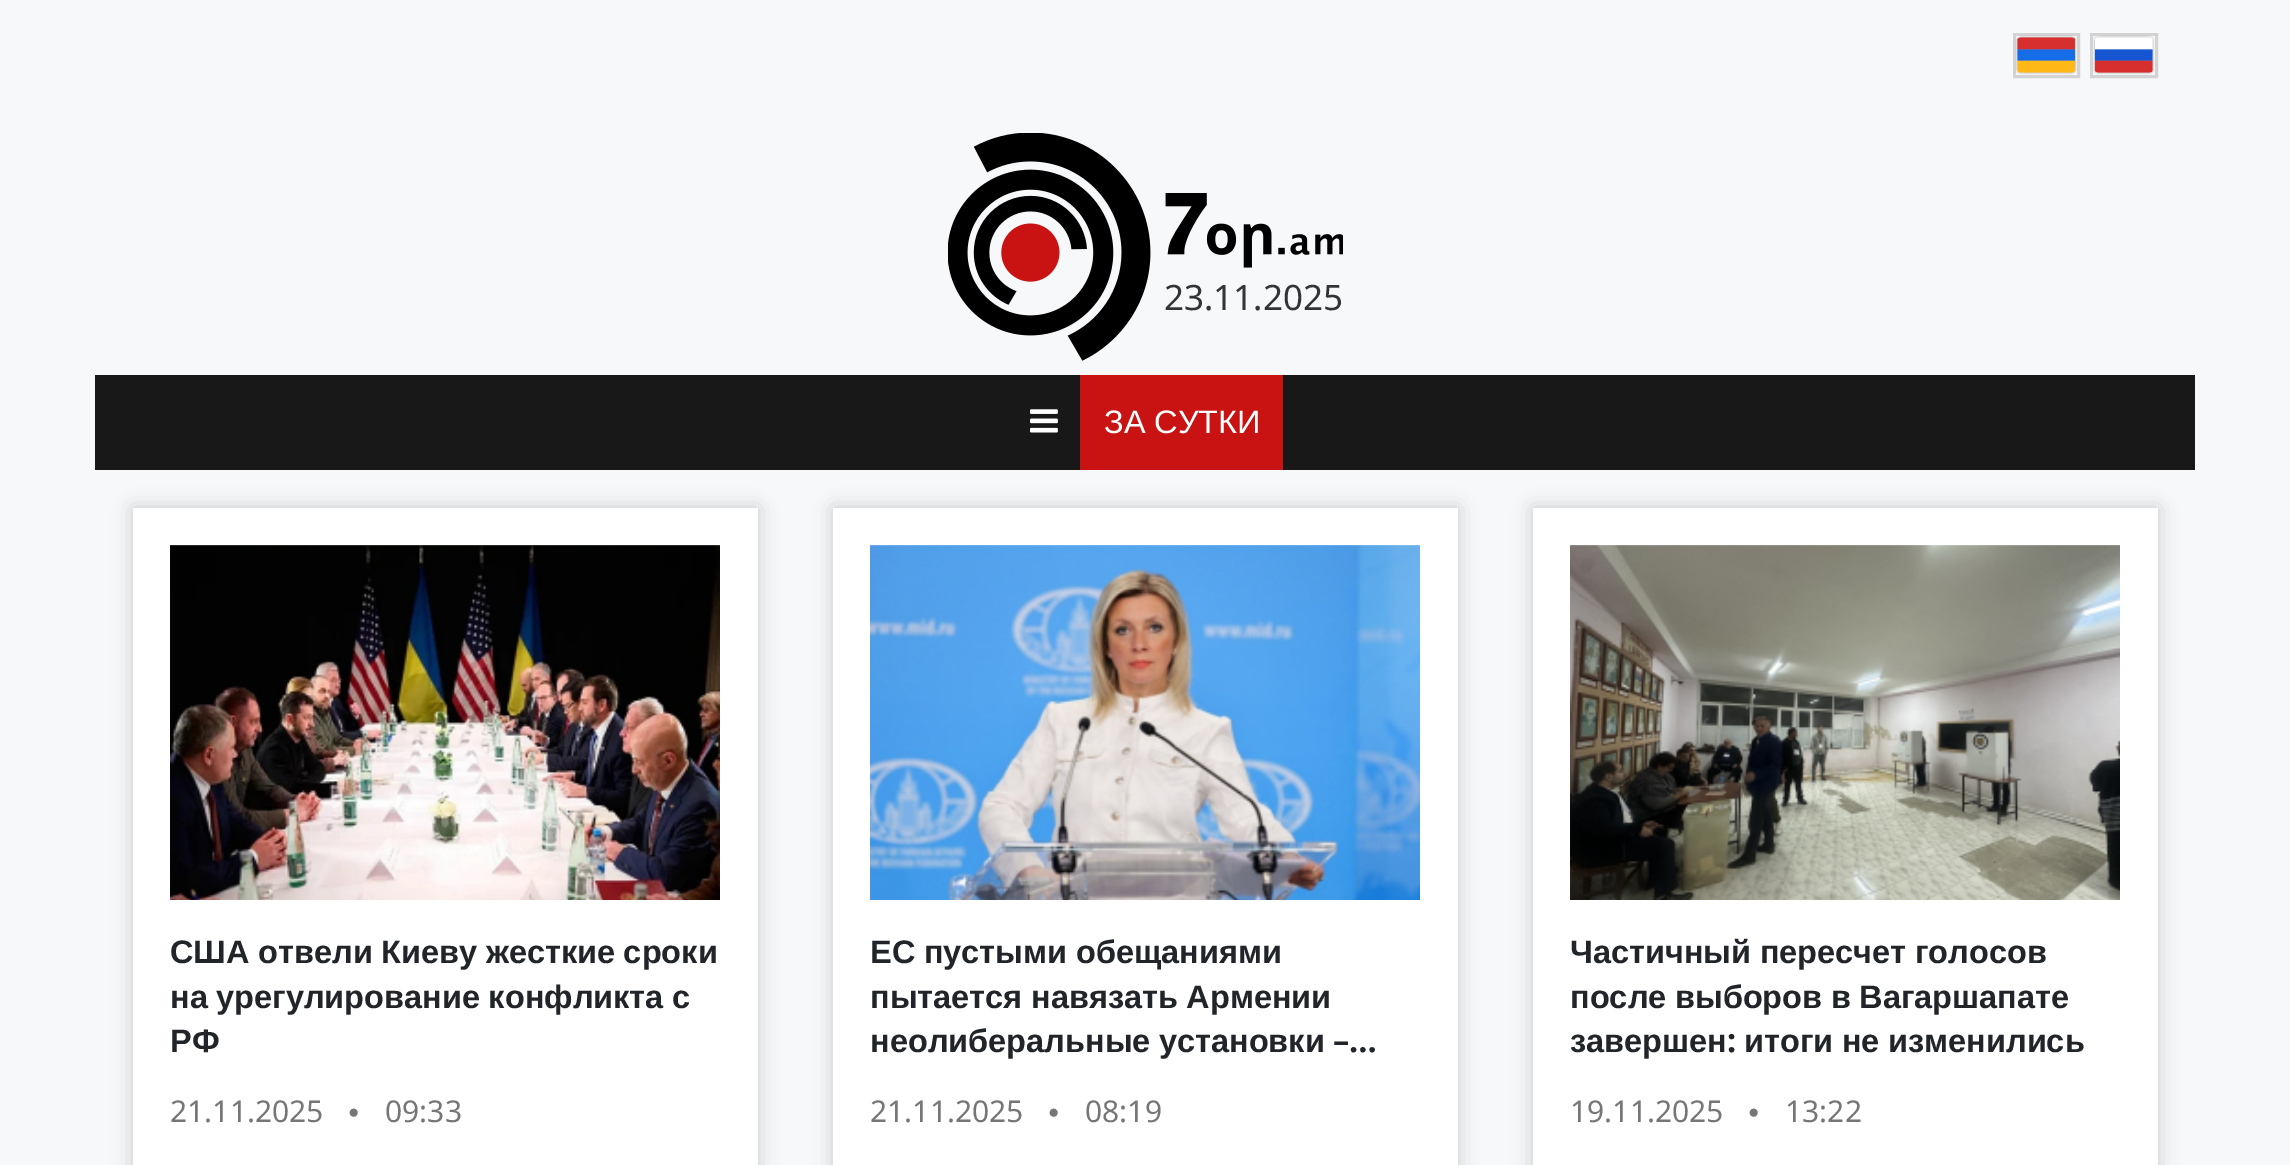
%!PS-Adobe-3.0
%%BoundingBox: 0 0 2290 1165
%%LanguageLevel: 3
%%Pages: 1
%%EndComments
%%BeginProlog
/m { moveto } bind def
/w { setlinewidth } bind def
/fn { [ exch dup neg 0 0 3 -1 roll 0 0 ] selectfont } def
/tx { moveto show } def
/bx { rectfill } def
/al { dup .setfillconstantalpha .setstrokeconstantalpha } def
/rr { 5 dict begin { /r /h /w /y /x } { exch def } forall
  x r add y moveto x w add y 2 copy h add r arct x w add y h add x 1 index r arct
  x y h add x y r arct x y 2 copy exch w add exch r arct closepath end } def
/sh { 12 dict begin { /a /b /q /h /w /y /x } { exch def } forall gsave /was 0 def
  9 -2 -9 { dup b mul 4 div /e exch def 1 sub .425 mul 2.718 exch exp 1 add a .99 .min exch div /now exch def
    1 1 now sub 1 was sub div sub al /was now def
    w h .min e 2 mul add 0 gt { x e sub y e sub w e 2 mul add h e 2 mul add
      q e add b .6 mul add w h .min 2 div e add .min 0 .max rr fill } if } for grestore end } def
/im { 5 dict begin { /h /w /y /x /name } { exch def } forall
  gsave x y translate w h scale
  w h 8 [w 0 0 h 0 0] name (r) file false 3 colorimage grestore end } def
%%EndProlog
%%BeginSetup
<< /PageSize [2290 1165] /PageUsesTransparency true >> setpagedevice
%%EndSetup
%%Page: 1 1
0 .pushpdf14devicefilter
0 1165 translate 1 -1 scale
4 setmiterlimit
0.965 0.973 0.98 setrgbcolor
0 0 2290 1165 bx
0.827 setgray
3 w
2014.5 34.5 64 42 rectstroke
2091.5 34.5 65 42 rectstroke
(image0.raw) 2015 35 62 40 im
(image1.raw) 2093 35 62 40 im
(image2.raw) 948 133 203 228 im
(image3.raw) 1165 193 178 75 im
/NotoSansArmenian-Regular 35 fn
0.204 setgray
(23.11.2025) 1164 310 tx
0.094 setgray
95 375 2100 95 bx
(image4.raw) 1030 409 28 24 im
0.788 0.075 0.075 setrgbcolor
1080 375 203 95 bx
/LiberationSans-Regular 32.5 fn
1 setgray
(ЗА СУТКИ) 1104 433 tx
0 setgray
133 508 625 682 0 10 0.18 sh
1 setgray
133 508 625 657 bx
(image5.raw) 170 545 550 355 im
/LiberationSans-Bold 32.5 fn
0.129 0.145 0.161 setrgbcolor
170 963 m -0.5 0 32 (США отвели Киеву жесткие сроки) widthshow
170 1008 m -0.5 0 32 (на урегулирование конфликта с) widthshow
(РФ) 170 1052 tx
/NotoSansArmenian-Regular 30 fn
0.463 setgray
(21.11.2025) 170 1122 tx
/LiberationSans-Regular 19 fn
(●) 348 1118 tx
/NotoSansArmenian-Regular 30 fn
(09:33) 385 1122 tx
0 setgray
833 508 625 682 0 10 0.18 sh
1 setgray
833 508 625 657 bx
(image6.raw) 870 545 550 355 im
/LiberationSans-Bold 32.5 fn
0.129 0.145 0.161 setrgbcolor
870 963 m -0.5 0 32 (ЕС пустыми обещаниями) widthshow
870 1008 m -0.5 0 32 (пытается навязать Армении) widthshow
870 1052 m -0.5 0 32 (неолиберальные установки) widthshow
/NotoSansArmenian-Bold 32.5 fn
(–…) 1333 1052 tx
/NotoSansArmenian-Regular 30 fn
0.463 setgray
(21.11.2025) 870 1122 tx
/LiberationSans-Regular 19 fn
(●) 1048 1118 tx
/NotoSansArmenian-Regular 30 fn
(08:19) 1085 1122 tx
0 setgray
1533 508 625 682 0 10 0.18 sh
1 setgray
1533 508 625 657 bx
(image7.raw) 1570 545 550 355 im
/LiberationSans-Bold 32.5 fn
0.129 0.145 0.161 setrgbcolor
1570 963 m -0.5 0 32 (Частичный пересчет голосов) widthshow
1570 1008 m -0.5 0 32 (после выборов в Вагаршапате) widthshow
(завершен) 1570 1052 tx
/NotoSansArmenian-Bold 32.5 fn
(:) 1727 1052 tx
/LiberationSans-Bold 32.5 fn
1744 1052 m -0.5 0 32 (итоги не изменились) widthshow
/NotoSansArmenian-Regular 30 fn
0.463 setgray
(19.11.2025) 1570 1122 tx
/LiberationSans-Regular 19 fn
(●) 1748 1118 tx
/NotoSansArmenian-Regular 30 fn
(13:22) 1785 1122 tx
.poppdf14devicefilter showpage
%%EOF
